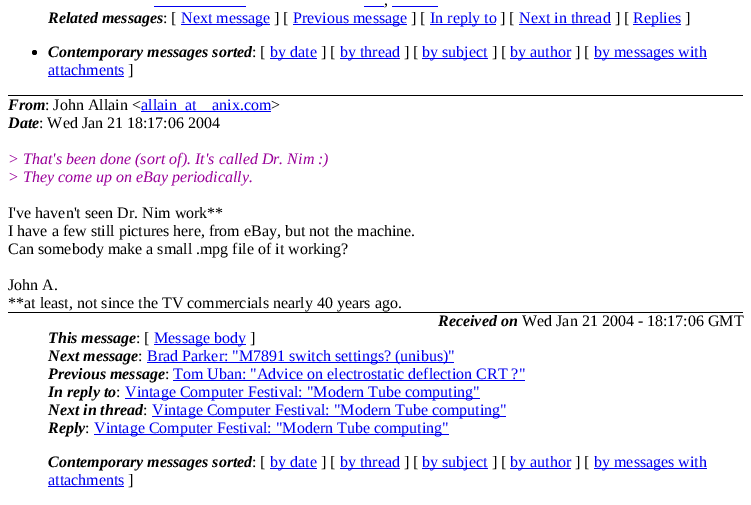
%!PS-Adobe-3.0
%%BoundingBox: 0 0 751 505
%%LanguageLevel: 3
%%Pages: 1
%%EndComments
%%BeginProlog
/f { fill } bind def
/fn { [ exch dup neg 0 0 3 -1 roll 0 0 ] selectfont } def
/tx { moveto show } def
/bx { rectfill } def
/ci { newpath 0 360 arc closepath } def
%%EndProlog
%%BeginSetup
<< /PageSize [751 505] >> setpagedevice
%%EndSetup
%%Page: 1 1
0 505 translate 1 -1 scale
4 setmiterlimit
1 setgray
0 0 751 505 bx
0 setgray
8 95 735 1 bx
0 0 0.933 setrgbcolor
154 6 92 1 bx
364 6 20 1 bx
/LiberationSerif-Regular 16 fn
0 setgray
(,) 384 5 tx
0 0 0.933 setrgbcolor
392 6 46 1 bx
/LiberationSerif-BoldItalic 16 fn
0 setgray
(Related messages) 48 23 tx
/LiberationSerif-Regular 16 fn
(: [) 163 23 tx
0 0 0.933 setrgbcolor
181 24 89 1 bx
(Next message) 181 23 tx
0 setgray
(] [) 274 23 tx
0 0 0.933 setrgbcolor
293 24 114 1 bx
(Previous message) 293 23 tx
0 setgray
(] [) 411 23 tx
0 0 0.933 setrgbcolor
430 24 66 1 bx
(In reply to) 430 23 tx
0 setgray
(] [) 500 23 tx
0 0 0.933 setrgbcolor
(Next in thread) 519 23 tx
519 24 92 1 bx
0 setgray
(] [) 615 23 tx
0 0 0.933 setrgbcolor
633 24 48 1 bx
(Replies) 633 23 tx
0 setgray
(]) 685 23 tx
34.5 52.5 2.5 ci f
/LiberationSerif-BoldItalic 16 fn
(Contemporary messages sorted) 48 57 tx
/LiberationSerif-Regular 16 fn
(: [) 252 57 tx
0 0 0.933 setrgbcolor
270 58 47 1 bx
(by date) 270 57 tx
0 setgray
(] [) 321 57 tx
0 0 0.933 setrgbcolor
340 58 60 1 bx
(by thread) 340 57 tx
0 setgray
(] [) 404 57 tx
0 0 0.933 setrgbcolor
422 58 66 1 bx
(by subject) 422 57 tx
0 setgray
(] [) 492 57 tx
0 0 0.933 setrgbcolor
510 58 61 1 bx
(by author) 510 57 tx
0 setgray
(] [) 575 57 tx
0 0 0.933 setrgbcolor
594 58 113 1 bx
(by messages with) 594 57 tx
(attachments) 48 75 tx
48 76 76 1 bx
0 setgray
(]) 128 75 tx
/LiberationSerif-BoldItalic 16 fn
(From) 8 110 tx
/LiberationSerif-Regular 16 fn
(: John Allain <) 45 110 tx
0 0 0.933 setrgbcolor
141 111 130 1 bx
(allain_at) 141 110 tx
(anix.com) 212 110 tx
0 setgray
(>) 271 110 tx
/LiberationSerif-BoldItalic 16 fn
(Date) 8 128 tx
/LiberationSerif-Regular 16 fn
(: Wed Jan 21 18:17:06 2004) 39 128 tx
/LiberationSerif-Italic 16 fn
0.6 0 0.6 setrgbcolor
(> That's been done \(sort of\). It's called Dr. Nim :\)) 8 164 tx
(> They come up on eBay periodically.) 8 182 tx
/LiberationSerif-Regular 16 fn
0 setgray
(I've haven't seen Dr. Nim work**) 8 218 tx
(I have a few still pictures here, from eBay, but not the machine.) 8 236 tx
(Can somebody make a small .mpg file of it working?) 8 254 tx
(John A.) 8 290 tx
(**at least, not since the TV commercials nearly 40 years ago.) 8 308 tx
/LiberationSerif-BoldItalic 16 fn
(Received on) 438 326 tx
/LiberationSerif-Regular 16 fn
(Wed Jan 21 2004 - 18:17:06 GMT) 522 326 tx
8 312 735 1 bx
/LiberationSerif-BoldItalic 16 fn
(This message) 48 343 tx
/LiberationSerif-Regular 16 fn
(: [) 136 343 tx
0 0 0.933 setrgbcolor
154 344 92 1 bx
(Message body) 154 343 tx
0 setgray
(]) 250 343 tx
/LiberationSerif-BoldItalic 16 fn
(Next message) 48 361 tx
/LiberationSerif-Regular 16 fn
(:) 138 361 tx
0 0 0.933 setrgbcolor
147 362 307 1 bx
(Brad Parker: "M7891 switch settings? \(unibus\)") 147 361 tx
/LiberationSerif-BoldItalic 16 fn
0 setgray
(Previous message) 48 379 tx
/LiberationSerif-Regular 16 fn
(:) 165 379 tx
0 0 0.933 setrgbcolor
(Tom Uban: "Advice on electrostatic deflection CRT ?") 173 379 tx
173 380 352 1 bx
/LiberationSerif-BoldItalic 16 fn
0 setgray
(In reply to) 48 397 tx
/LiberationSerif-Regular 16 fn
(:) 116 397 tx
0 0 0.933 setrgbcolor
125 398 355 1 bx
(Vintage Computer Festival: "Modern Tube computing") 125 397 tx
/LiberationSerif-BoldItalic 16 fn
0 setgray
(Next in thread) 48 415 tx
/LiberationSerif-Regular 16 fn
(:) 143 415 tx
0 0 0.933 setrgbcolor
152 416 354 1 bx
(Vintage Computer Festival: "Modern Tube computing") 152 415 tx
/LiberationSerif-BoldItalic 16 fn
0 setgray
(Reply) 48 433 tx
/LiberationSerif-Regular 16 fn
(:) 85 433 tx
0 0 0.933 setrgbcolor
94 434 355 1 bx
(Vintage Computer Festival: "Modern Tube computing") 94 433 tx
/LiberationSerif-BoldItalic 16 fn
0 setgray
(Contemporary messages sorted) 48 467 tx
/LiberationSerif-Regular 16 fn
(: [) 252 467 tx
0 0 0.933 setrgbcolor
270 468 47 1 bx
(by date) 270 467 tx
0 setgray
(] [) 321 467 tx
0 0 0.933 setrgbcolor
340 468 60 1 bx
(by thread) 340 467 tx
0 setgray
(] [) 404 467 tx
0 0 0.933 setrgbcolor
422 468 66 1 bx
(by subject) 422 467 tx
0 setgray
(] [) 492 467 tx
0 0 0.933 setrgbcolor
510 468 61 1 bx
(by author) 510 467 tx
0 setgray
(] [) 575 467 tx
0 0 0.933 setrgbcolor
594 468 113 1 bx
(by messages with) 594 467 tx
(attachments) 48 485 tx
48 486 76 1 bx
0 setgray
(]) 128 485 tx
showpage
%%EOF
